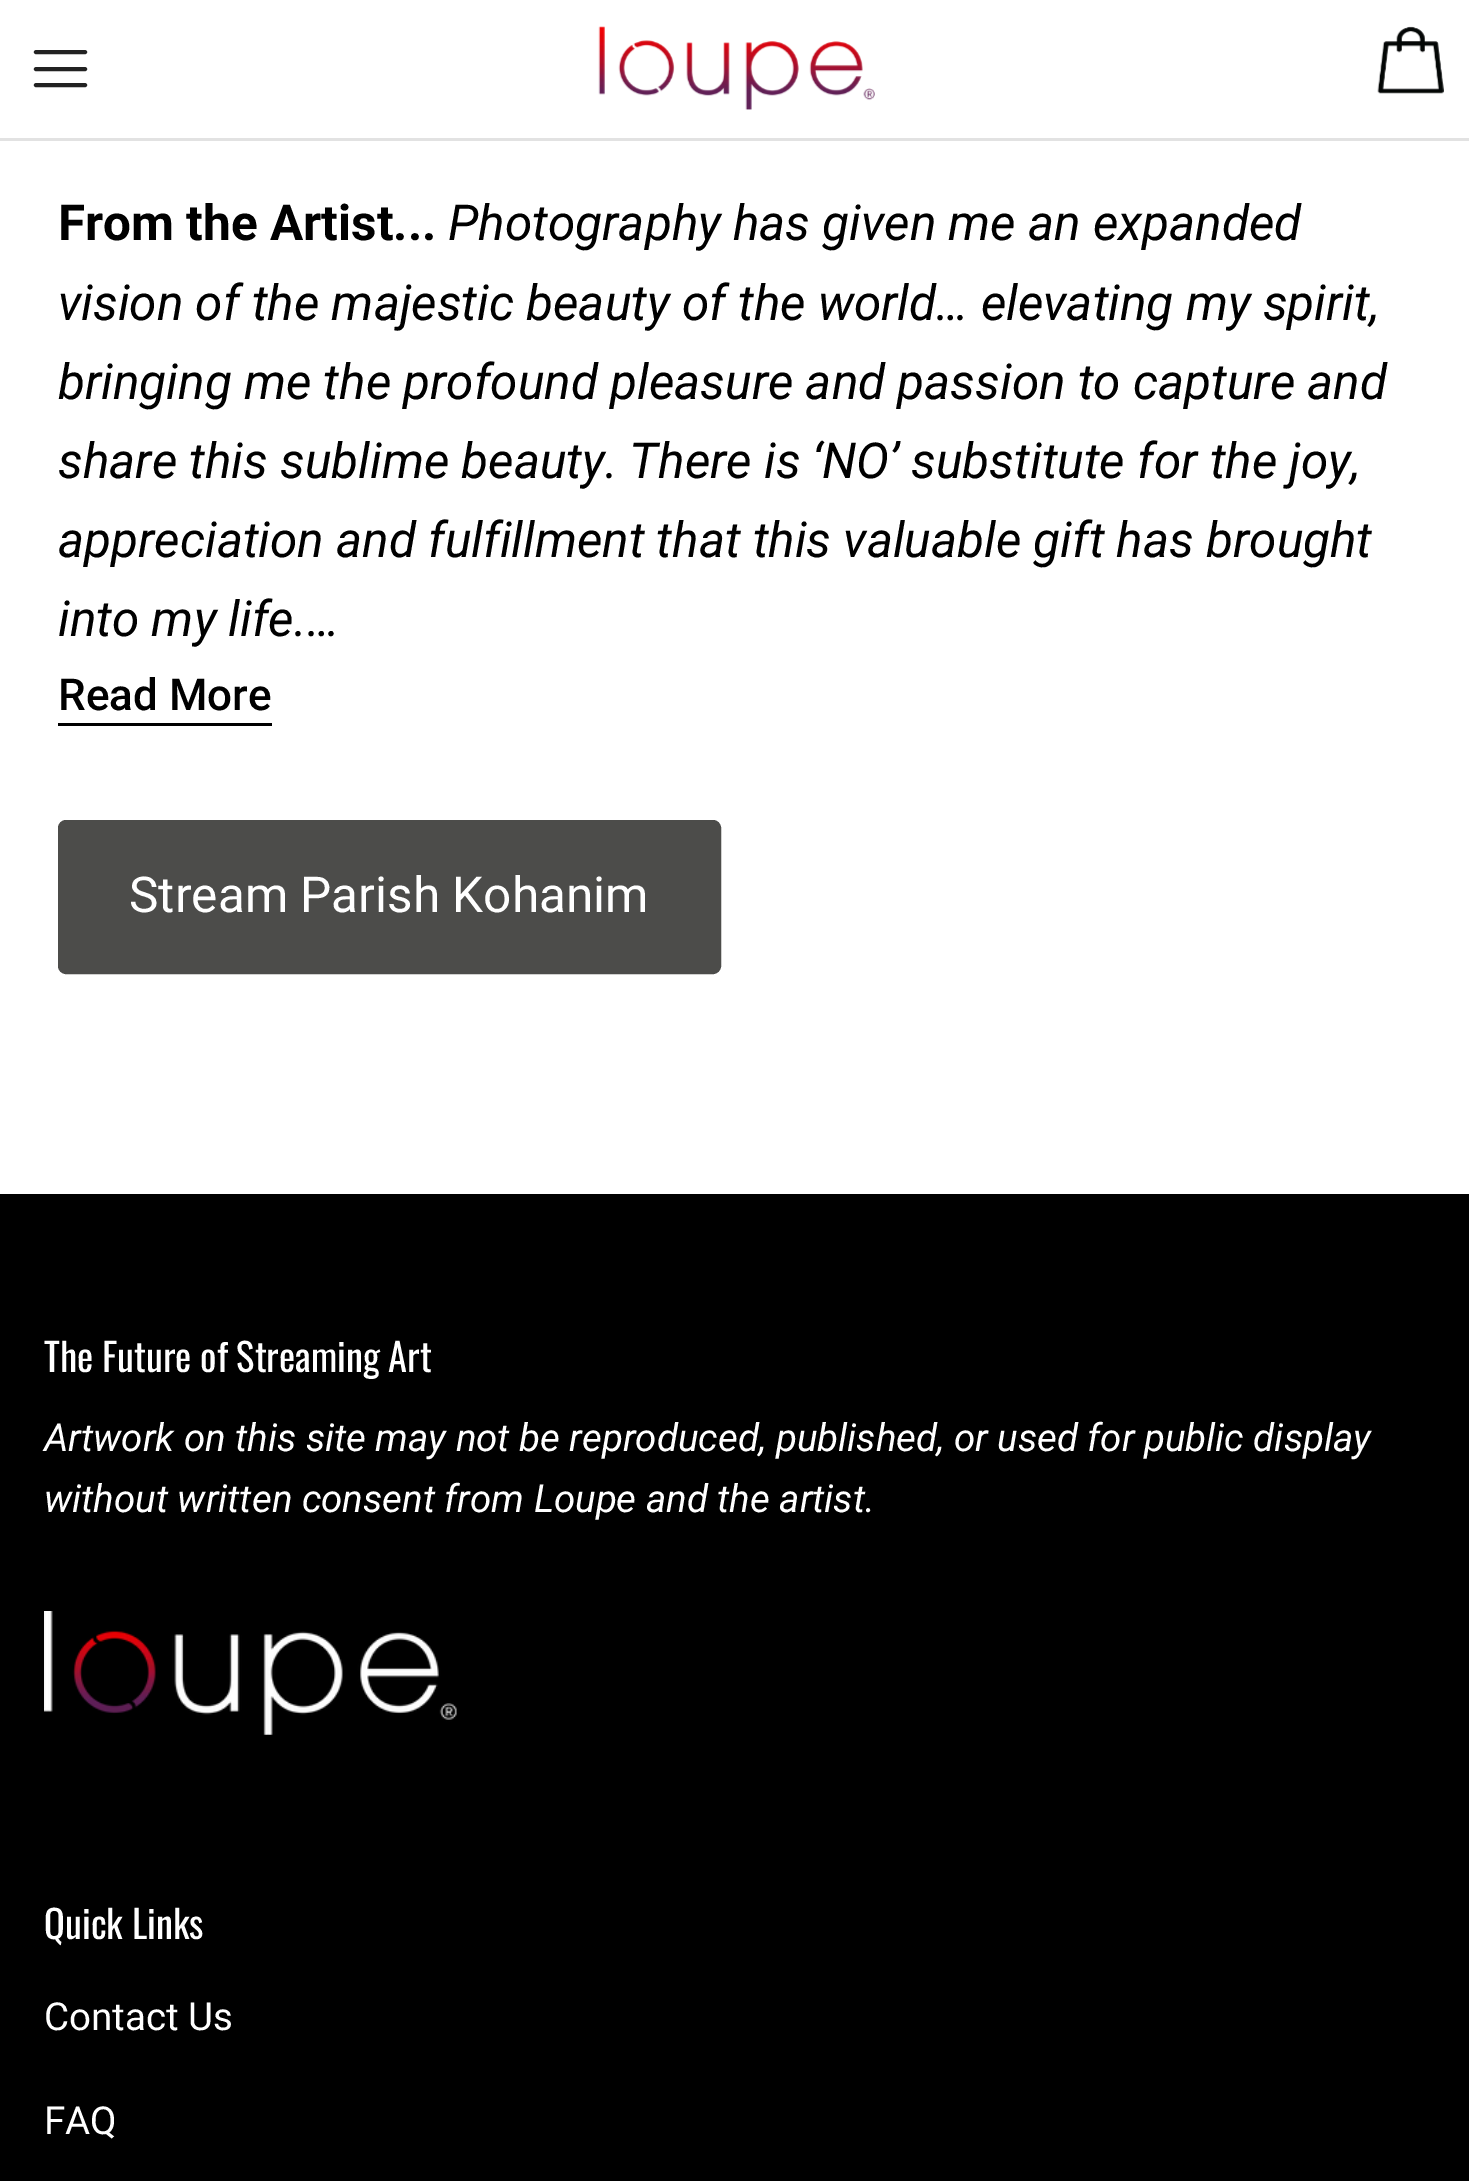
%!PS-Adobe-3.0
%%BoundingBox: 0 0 1469 2181
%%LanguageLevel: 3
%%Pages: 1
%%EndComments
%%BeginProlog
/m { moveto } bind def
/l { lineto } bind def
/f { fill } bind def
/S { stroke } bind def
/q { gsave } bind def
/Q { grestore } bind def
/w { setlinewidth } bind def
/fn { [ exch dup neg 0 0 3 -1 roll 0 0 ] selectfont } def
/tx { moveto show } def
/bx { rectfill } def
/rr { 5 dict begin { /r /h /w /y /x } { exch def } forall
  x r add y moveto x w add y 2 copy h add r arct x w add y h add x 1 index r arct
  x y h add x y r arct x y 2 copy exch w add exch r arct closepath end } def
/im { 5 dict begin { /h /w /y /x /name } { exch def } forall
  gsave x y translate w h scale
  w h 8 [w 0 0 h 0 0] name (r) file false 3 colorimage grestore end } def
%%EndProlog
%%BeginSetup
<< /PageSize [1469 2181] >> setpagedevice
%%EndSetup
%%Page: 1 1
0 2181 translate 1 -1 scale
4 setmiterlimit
1 setgray
0 0 1469 2181 bx
0.886 setgray
0 138 1469 3 bx
0.133 setgray
4.1 w
1 setlinecap
1 setlinejoin
36 69 m 85 69 l 36 52 m 85 52 l 36 85 m 85 85 l S
(image0.raw) 598 26 277 84 im
(image1.raw) 1377 26 67 68 im
/Roboto-Bold 49.5 fn
0 setgray
(From the Artist...) 58 240 tx
/Roboto-Italic 49.5 fn
(Photography has given me an expanded) 448 240 tx
(vision of the majestic beauty of the world… elevating my spirit,) 58 320 tx
(bringing me the profound pleasure and passion to capture and) 58 399 tx
(share this sublime beauty. There is ‘NO’ substitute for the joy,) 58 478 tx
(appreciation and fulfillment that this valuable gift has brought) 58 557 tx
(into my life.…) 58 636 tx
/Roboto-Medium 44 fn
(Read More) 58 710 tx
58 723 214 3 bx
0.298 0.298 0.29 setrgbcolor
59.5 821.5 660 151 6.5 rr q f Q
3 w
0 setlinecap
0 setlinejoin
S
/Roboto-Regular 49.5 fn
1 setgray
(Stream Parish Kohanim) 129 912 tx
0 setgray
0 1194 1469 987 bx
/Oswald-Regular 38.5 fn
1 setgray
(The Future of Streaming Art) 44 1372 tx
/Roboto-Italic 38.5 fn
(Artwork on this site may not be reproduced, published, or used for public display) 44 1451 tx
(without written consent from Loupe and the artist.) 44 1512 tx
(image2.raw) 44 1611 413 124 im
/Oswald-Regular 38.5 fn
(Quick Links) 44 1939 tx
/Roboto-Regular 38.5 fn
(Contact Us) 44 2030 tx
(FAQ) 44 2134 tx
showpage
%%EOF
